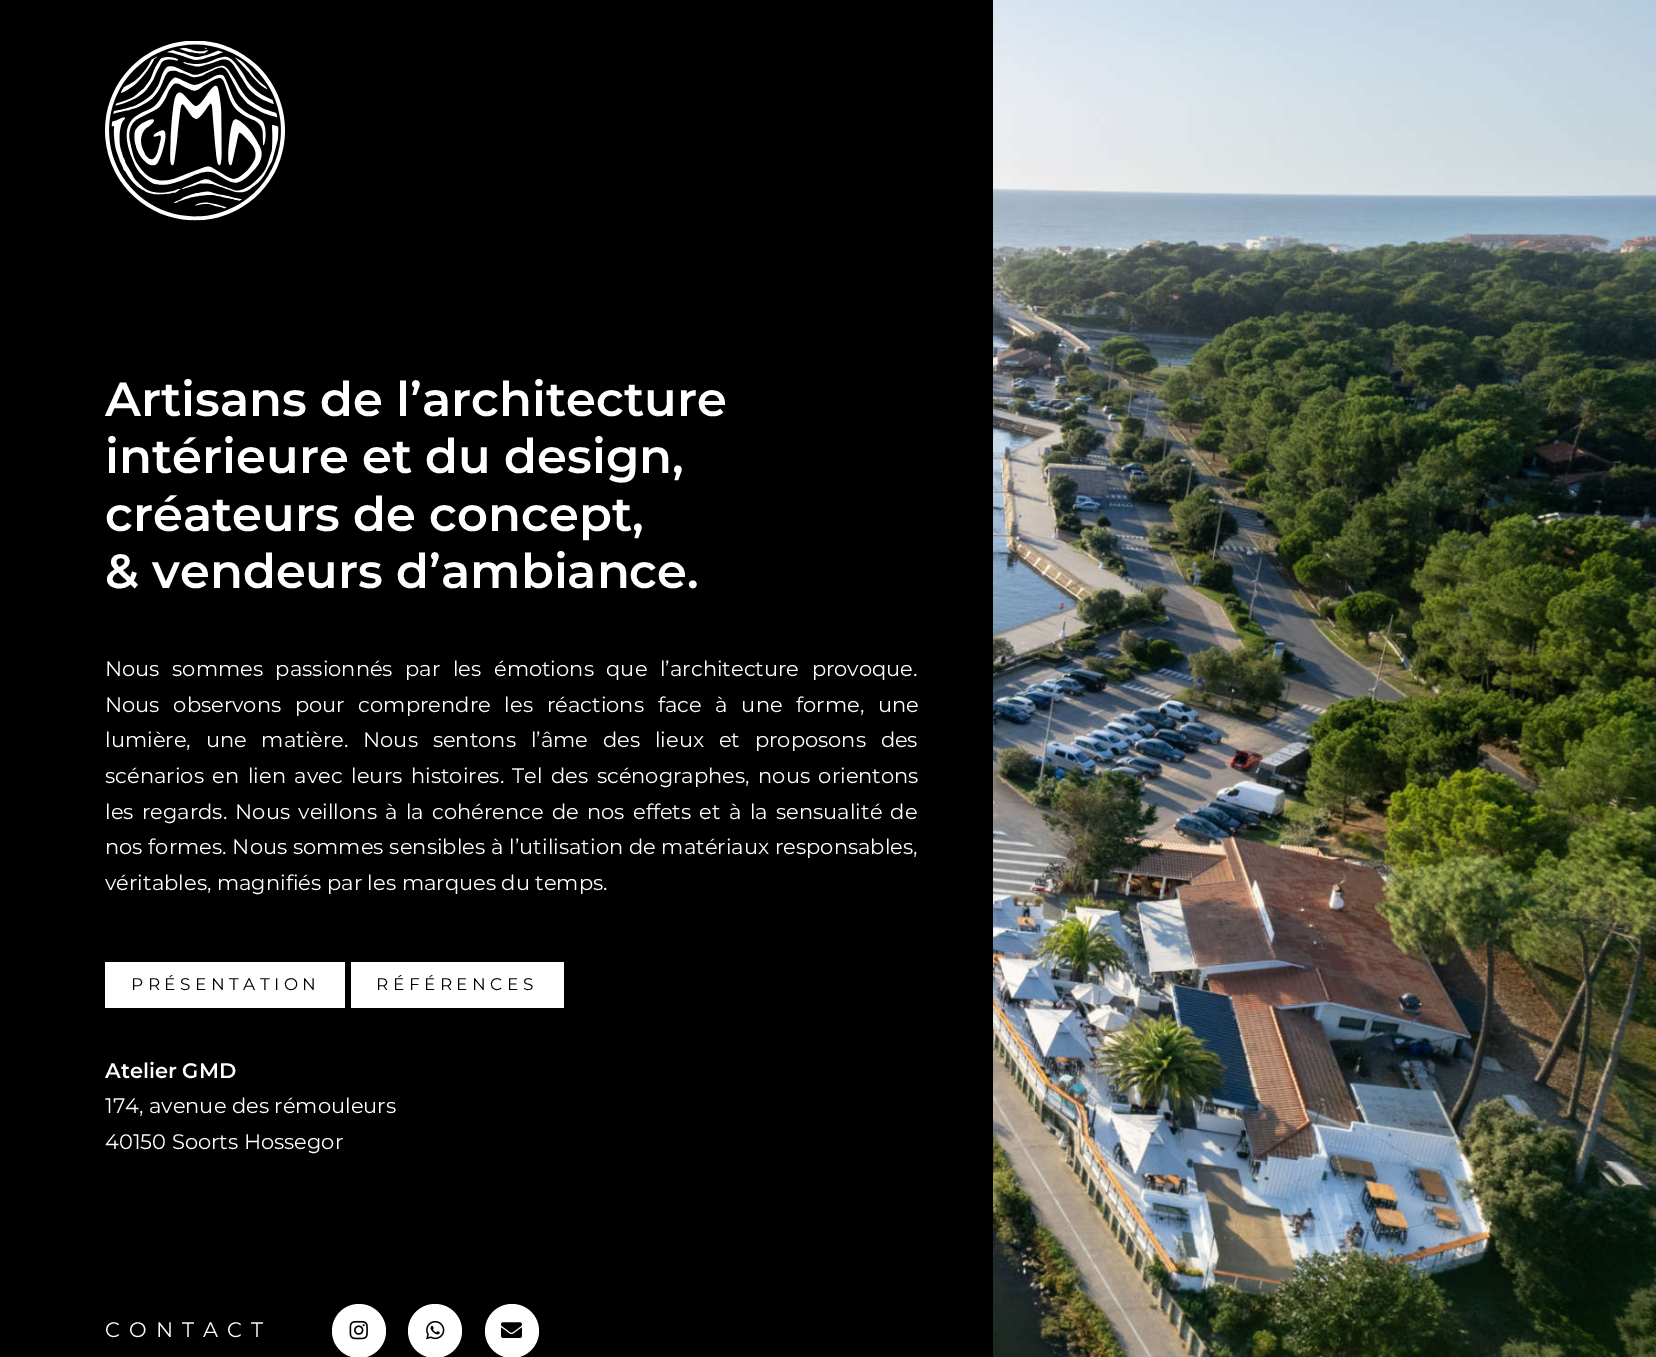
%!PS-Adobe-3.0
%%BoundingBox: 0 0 1656 1357
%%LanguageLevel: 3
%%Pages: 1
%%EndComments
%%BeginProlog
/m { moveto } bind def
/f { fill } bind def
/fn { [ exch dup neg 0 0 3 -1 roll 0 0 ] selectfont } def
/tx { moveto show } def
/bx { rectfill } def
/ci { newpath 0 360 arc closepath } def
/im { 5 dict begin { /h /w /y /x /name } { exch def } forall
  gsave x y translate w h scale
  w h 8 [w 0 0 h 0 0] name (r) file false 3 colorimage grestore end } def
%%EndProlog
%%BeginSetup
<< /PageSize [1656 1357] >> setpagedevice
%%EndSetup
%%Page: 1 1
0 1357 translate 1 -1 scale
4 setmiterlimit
0 setgray
0 0 1656 1357 bx
(image0.raw) 105 41 180 180 im
/Montserrat-SemiBold 48 fn
1 setgray
(Artisans de l’architecture) 105 416 tx
(intérieure et du design,) 105 473 tx
(créateurs de concept,) 105 531 tx
(& vendeurs d’ambiance.) 105 588 tx
/Montserrat-Regular 21 fn
105 676 m 7 0 32 (Nous sommes passionnés par les émotions que l’architecture provoque.) widthshow
105 712 m 8.25 0 32 (Nous observons pour comprendre les réactions face à une forme, une) widthshow
105 747 m 9.25 0 32 (lumière, une matière. Nous sentons l’âme des lieux et proposons des) widthshow
105 783 m 3 0 32 (scénarios en lien avec leurs histoires.) widthshow
512 783 m 3 0 32 (Tel des scénographes, nous orientons) widthshow
105 819 m 2.75 0 32 (les regards. Nous veillons à la cohérence de nos effets et à la sensualité de) widthshow
105 854 m 0.25 0 32 (nos formes. Nous sommes sensibles à l’utilisation de matériaux responsables,) widthshow
(véritables, magnifiés par les marques du temps.) 105 890 tx
105 962 240 46 bx
/Montserrat-Regular 16.9 fn
0 setgray
131 990 m 4.5 0 (PRÉSENTATION) ashow
1 setgray
351 962 213 46 bx
0 setgray
376 990 m 4.5 0 (RÉFÉRENCES) ashow
/Montserrat-SemiBold 21 fn
1 setgray
(Atelier GMD) 105 1078 tx
/Montserrat-Regular 21 fn
(174, avenue des rémouleurs) 105 1113 tx
(40150 Soorts Hossegor) 105 1149 tx
105 1337 m 9 0 (CONTACT) ashow
359 1331 27 ci f
(image1.raw) 349 1320 19 20 im
435 1331 27 ci f
(image2.raw) 426 1320 19 20 im
512 1331 27 ci f
(image3.raw) 501 1322 21 16 im
(image4.raw) 993 0 663 1357 im
showpage
%%EOF
